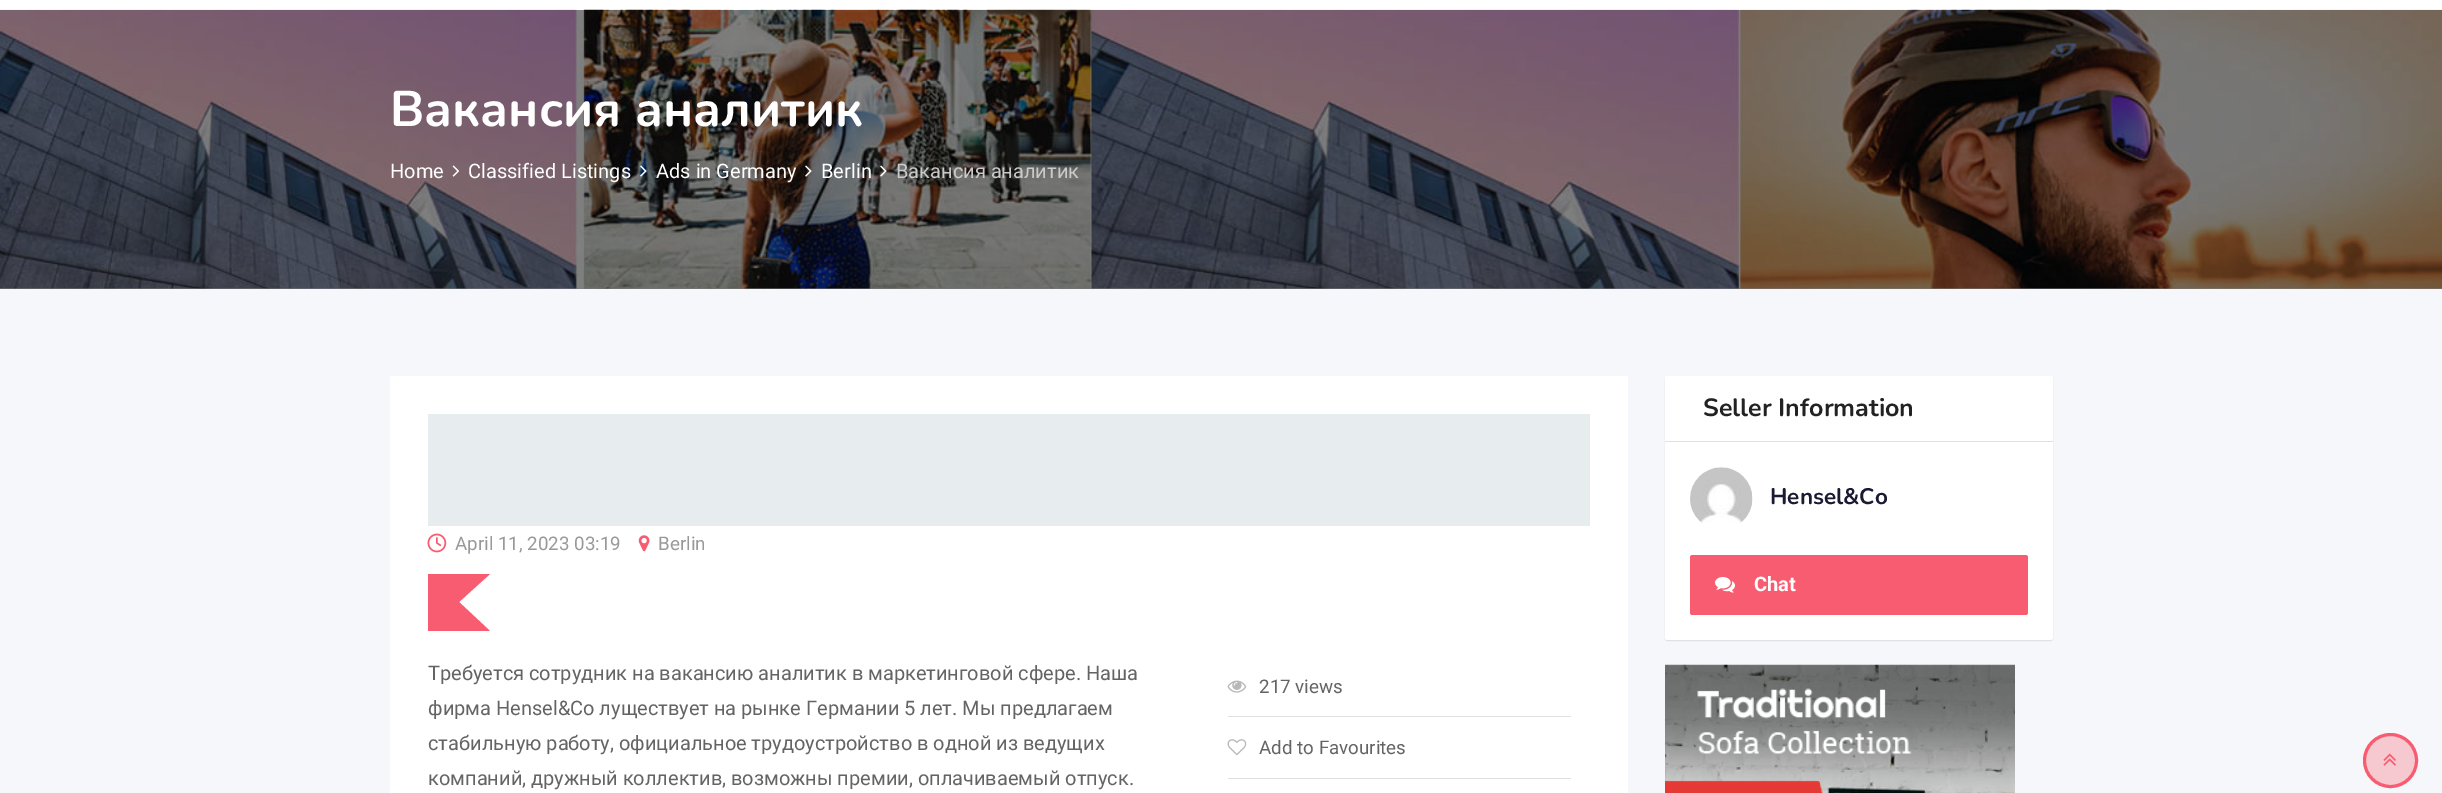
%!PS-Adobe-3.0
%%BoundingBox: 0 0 2442 793
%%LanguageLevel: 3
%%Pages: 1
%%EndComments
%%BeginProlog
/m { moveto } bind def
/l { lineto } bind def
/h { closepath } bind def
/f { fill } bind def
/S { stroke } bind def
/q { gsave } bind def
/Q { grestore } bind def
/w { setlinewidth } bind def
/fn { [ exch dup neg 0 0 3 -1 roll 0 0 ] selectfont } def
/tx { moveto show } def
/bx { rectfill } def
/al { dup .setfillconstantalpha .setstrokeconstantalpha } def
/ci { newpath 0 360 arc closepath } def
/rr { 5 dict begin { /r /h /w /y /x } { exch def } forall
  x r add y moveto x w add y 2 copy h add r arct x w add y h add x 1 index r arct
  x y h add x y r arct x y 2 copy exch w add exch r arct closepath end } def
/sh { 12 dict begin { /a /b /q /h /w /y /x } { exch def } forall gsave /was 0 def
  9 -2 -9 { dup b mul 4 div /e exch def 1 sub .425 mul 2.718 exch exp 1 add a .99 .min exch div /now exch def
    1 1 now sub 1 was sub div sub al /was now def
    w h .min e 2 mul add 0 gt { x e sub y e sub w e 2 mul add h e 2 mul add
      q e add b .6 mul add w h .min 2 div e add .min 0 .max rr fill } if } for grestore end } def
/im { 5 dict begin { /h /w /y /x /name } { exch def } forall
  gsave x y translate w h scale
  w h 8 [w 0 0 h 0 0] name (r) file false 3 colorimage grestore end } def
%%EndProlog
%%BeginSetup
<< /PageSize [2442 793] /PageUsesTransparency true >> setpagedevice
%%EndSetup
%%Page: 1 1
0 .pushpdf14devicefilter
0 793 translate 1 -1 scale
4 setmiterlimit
1 setgray
0 0 2442 793 bx
0.961 0.969 0.98 setrgbcolor
0 289 2442 504 bx
0.482 0.486 0.49 setrgbcolor
0 288 2442 1 bx
(image0.raw) 0 9 2442 280 im
/Nunito-ExtraLight 50 fn
1 setgray
(Вакансия аналитик) 390 126 tx
/Roboto-Regular 20 fn
(Home) 390 178 tx
(image1.raw) 452 165 8 12 im
(Classified Listings) 468 178 tx
(image2.raw) 640 165 7 12 im
(Ads in Germany) 656 178 tx
(image3.raw) 805 165 7 12 im
(Berlin) 821 178 tx
(image4.raw) 880 165 7 12 im
0.792 setgray
(Вакансия аналитик) 896 178 tx
0 setgray
1665 378 388 263 2.5 0.5 0.1 sh
1 setgray
1665 376 388 264 2.5 rr f
0.882 setgray
1665 441 388 1 bx
/Nunito-ExtraLight 25 fn
0.133 setgray
(Seller Information) 1703 416 tx
(image5.raw) 1690 467 63 56 im
/Nunito-ExtraLight 22.5 fn
0.094 0.106 0.192 setrgbcolor
(Hensel&Co) 1770 504 tx
0.973 0.361 0.439 setrgbcolor
1690 555 338 60 2.5 rr f
(image6.raw) 1715 577 20 16 im
/Roboto-Bold 20 fn
1 setgray
(Chat) 1754 591 tx
(image7.raw) 1665 664 350 129 im
390 376 1238 417 bx
0.906 0.929 0.933 setrgbcolor
428 414 1162 112 bx
(image8.raw) 427 533 20 20 im
/Roboto-Regular 18.75 fn
0.6 setgray
(April 11, 2023 03:19) 455 550 tx
(image9.raw) 638 535 12 17 im
(Berlin) 658 550 tx
0.973 0.361 0.439 setrgbcolor
428 574 m 490 574 l 459 602 l 490 631 l 428 631 l h f
/Roboto-Regular 20 fn
0.392 setgray
(Требуется сотрудник на вакансию аналитик в маркетинговой сфере. Наша) 428 680 tx
(фирма Hensel&Co луществует на рынке Германии 5 лет. Мы предлагаем) 428 715 tx
(стабильную работу, официальное трудоустройство в одной из ведущих) 428 750 tx
(компаний, дружный коллектив, возможны премии, оплачиваемый отпуск.) 428 785 tx
(image10.raw) 1227 680 20 13 im
/Roboto-Regular 18.75 fn
(217 views) 1259 693 tx
0.875 setgray
1228 716 343 1 bx
1228 778 343 1 bx
(image11.raw) 1227 739 20 17 im
0.392 setgray
(Add to Favourites) 1259 754 tx
0.965 0.788 0.82 setrgbcolor
2390.5 760.5 26 ci q f Q
0.973 0.361 0.439 setrgbcolor
3 w
S
(image12.raw) 2383 753 13 13 im
.poppdf14devicefilter showpage
%%EOF
